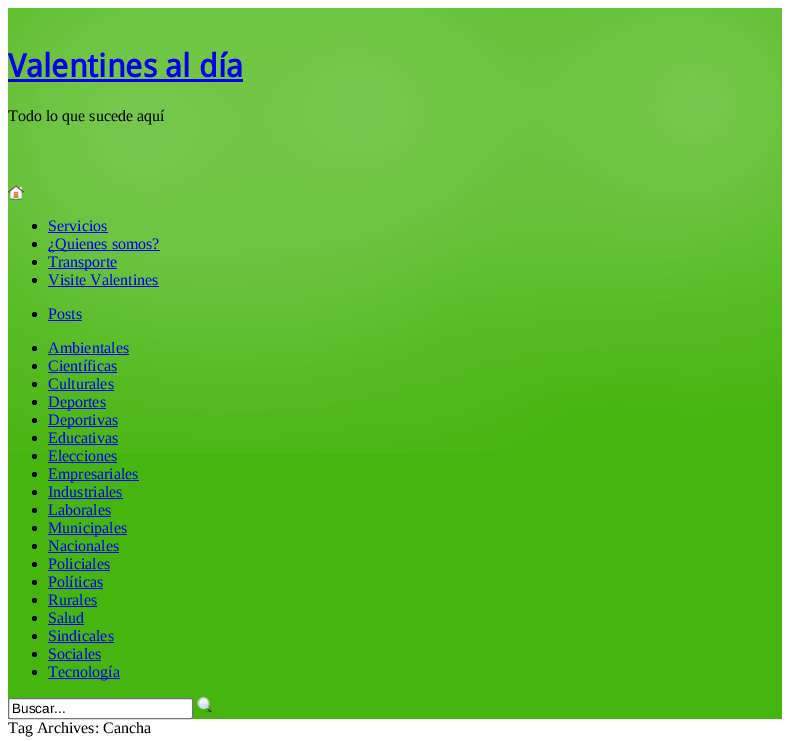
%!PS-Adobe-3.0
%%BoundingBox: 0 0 790 741
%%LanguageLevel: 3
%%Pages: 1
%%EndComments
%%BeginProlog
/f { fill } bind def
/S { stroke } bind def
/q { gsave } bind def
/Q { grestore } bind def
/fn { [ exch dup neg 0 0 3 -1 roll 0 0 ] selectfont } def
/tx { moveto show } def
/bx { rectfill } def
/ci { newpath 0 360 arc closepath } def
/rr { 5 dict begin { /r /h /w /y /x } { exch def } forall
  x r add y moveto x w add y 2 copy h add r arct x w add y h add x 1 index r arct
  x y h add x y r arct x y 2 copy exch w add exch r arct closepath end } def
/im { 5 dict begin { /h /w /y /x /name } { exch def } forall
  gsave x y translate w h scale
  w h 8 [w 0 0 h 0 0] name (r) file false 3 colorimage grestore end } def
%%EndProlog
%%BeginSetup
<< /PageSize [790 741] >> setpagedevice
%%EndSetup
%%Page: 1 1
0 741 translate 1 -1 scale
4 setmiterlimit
1 setgray
0 0 790 741 bx
0.278 0.71 0.063 setrgbcolor
8 8 774 711 bx
(image0.raw) 8 8 774 446 im
/DroidSans-Bold 32 fn
0 0 0.933 setrgbcolor
(Valentines al día) 8 77 tx
8 79 235 3 bx
/LiberationSerif-Regular 16 fn
0 setgray
(Todo lo que sucede aquí) 8 121 tx
(image1.raw) 8 185 16 15 im
34.5 226.5 2.5 ci f
0 0 0.933 setrgbcolor
(Servicios) 48 231 tx
48 232 60 1 bx
0 setgray
34.5 244.5 2.5 ci f
0 0 0.933 setrgbcolor
48 250 112 1 bx
(¿Quienes somos?) 48 249 tx
0 setgray
34.5 262.5 2.5 ci f
0 0 0.933 setrgbcolor
48 268 69 1 bx
(Transporte) 48 267 tx
0 setgray
34.5 280.5 2.5 ci f
0 0 0.933 setrgbcolor
(Visite Valentines) 48 285 tx
48 286 111 1 bx
0 setgray
34.5 314.5 2.5 ci f
0 0 0.933 setrgbcolor
(Posts) 48 319 tx
48 320 34 1 bx
0 setgray
34.5 348.5 2.5 ci f
0 0 0.933 setrgbcolor
(Ambientales) 48 353 tx
48 354 81 1 bx
0 setgray
34.5 366.5 2.5 ci f
0 0 0.933 setrgbcolor
(Científicas) 48 371 tx
48 372 69 1 bx
0 setgray
34.5 384.5 2.5 ci f
0 0 0.933 setrgbcolor
(Culturales) 48 389 tx
48 390 66 1 bx
0 setgray
34.5 402.5 2.5 ci f
0 0 0.933 setrgbcolor
48 408 58 1 bx
(Deportes) 48 407 tx
0 setgray
34.5 420.5 2.5 ci f
0 0 0.933 setrgbcolor
48 426 70 1 bx
(Deportivas) 48 425 tx
0 setgray
34.5 438.5 2.5 ci f
0 0 0.933 setrgbcolor
(Educativas) 48 443 tx
48 444 70 1 bx
0 setgray
34.5 456.5 2.5 ci f
0 0 0.933 setrgbcolor
(Elecciones) 48 461 tx
48 462 69 1 bx
0 setgray
34.5 474.5 2.5 ci f
0 0 0.933 setrgbcolor
48 480 91 1 bx
(Empresariales) 48 479 tx
0 setgray
34.5 492.5 2.5 ci f
0 0 0.933 setrgbcolor
(Industriales) 48 497 tx
48 498 75 1 bx
0 setgray
34.5 510.5 2.5 ci f
0 0 0.933 setrgbcolor
(Laborales) 48 515 tx
48 516 63 1 bx
0 setgray
34.5 528.5 2.5 ci f
0 0 0.933 setrgbcolor
48 534 79 1 bx
(Municipales) 48 533 tx
0 setgray
34.5 546.5 2.5 ci f
0 0 0.933 setrgbcolor
(Nacionales) 48 551 tx
48 552 71 1 bx
0 setgray
34.5 564.5 2.5 ci f
0 0 0.933 setrgbcolor
(Policiales) 48 569 tx
48 570 62 1 bx
0 setgray
34.5 582.5 2.5 ci f
0 0 0.933 setrgbcolor
(Políticas) 48 587 tx
48 588 55 1 bx
0 setgray
34.5 600.5 2.5 ci f
0 0 0.933 setrgbcolor
(Rurales) 48 605 tx
48 606 49 1 bx
0 setgray
34.5 618.5 2.5 ci f
0 0 0.933 setrgbcolor
(Salud) 48 623 tx
48 624 36 1 bx
0 setgray
34.5 636.5 2.5 ci f
0 0 0.933 setrgbcolor
(Sindicales) 48 641 tx
48 642 66 1 bx
0 setgray
34.5 654.5 2.5 ci f
0 0 0.933 setrgbcolor
(Sociales) 48 659 tx
48 660 53 1 bx
0 setgray
34.5 672.5 2.5 ci f
0 0 0.933 setrgbcolor
48 678 72 1 bx
(Tecnología) 48 677 tx
1 setgray
8.5 698.5 184 20 1.5 rr q f Q
0.463 setgray
S
/LiberationSans-Regular 13.5 fn
0 setgray
(Buscar...) 12 713 tx
(image2.raw) 197 697 15 16 im
/LiberationSerif-Regular 16 fn
(Tag Archives: Cancha) 8 733 tx
showpage
%%EOF
